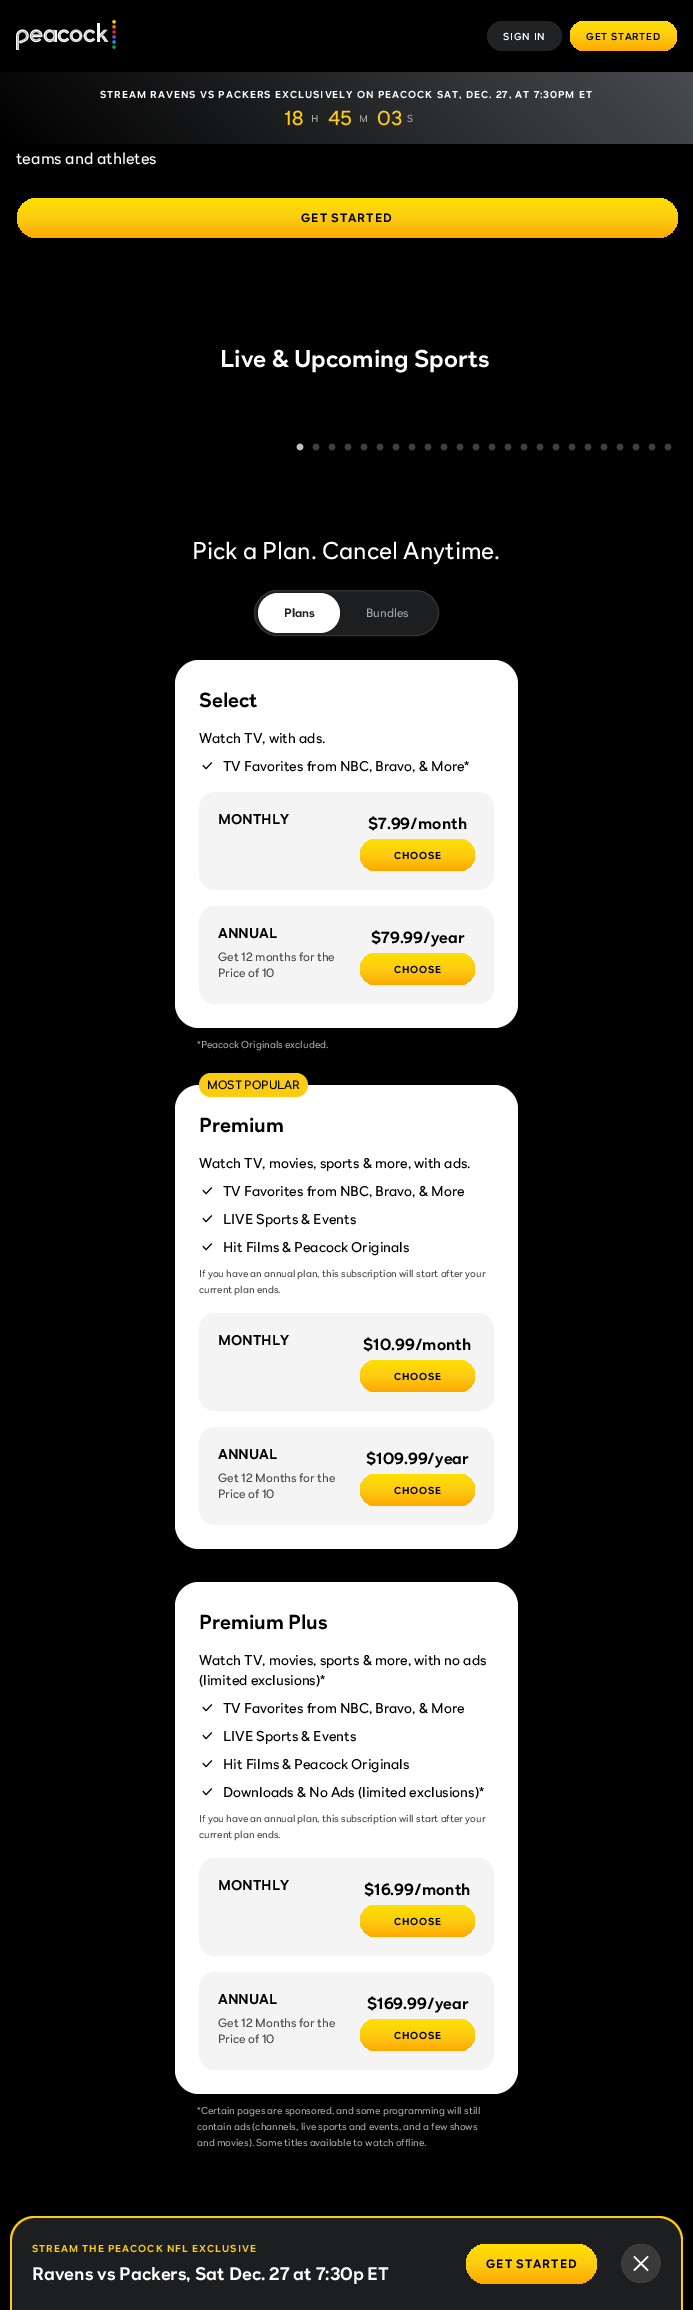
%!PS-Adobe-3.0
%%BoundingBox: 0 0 693 2310
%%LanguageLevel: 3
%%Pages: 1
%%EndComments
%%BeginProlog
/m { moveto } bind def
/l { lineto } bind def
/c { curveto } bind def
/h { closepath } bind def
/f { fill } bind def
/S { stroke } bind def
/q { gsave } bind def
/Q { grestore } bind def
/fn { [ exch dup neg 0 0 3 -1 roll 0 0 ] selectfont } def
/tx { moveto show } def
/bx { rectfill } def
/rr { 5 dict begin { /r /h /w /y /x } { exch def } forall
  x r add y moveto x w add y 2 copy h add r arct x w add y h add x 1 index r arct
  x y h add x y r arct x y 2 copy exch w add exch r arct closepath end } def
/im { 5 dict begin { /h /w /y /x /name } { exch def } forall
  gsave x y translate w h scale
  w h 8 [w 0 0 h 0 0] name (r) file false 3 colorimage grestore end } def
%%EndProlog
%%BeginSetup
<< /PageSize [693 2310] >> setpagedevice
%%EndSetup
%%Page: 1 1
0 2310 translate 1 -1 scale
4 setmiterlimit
0 setgray
0 0 693 2310 bx
(image0.raw) 16 20 100 30 im
0.125 0.133 0.141 setrgbcolor
487 21 75 30 15 rr f
/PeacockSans-Medium 10 fn
1 setgray
503 40 m 0.75 0 (SIGN IN) ashow
q 570 21 107 30 15 rr clip newpath
<< /ShadingType 2 /ColorSpace /DeviceRGB /Coords [624 21 624 51] /Extend [true true] /Function << /FunctionType 3 /Domain [0 1] /Functions [<< /FunctionType 2 /Domain [0 1] /C0 [1 0.878 0] /C1 [0.988 0.8 0.071] /N 1 >> << /FunctionType 2 /Domain [0 1] /C0 [0.988 0.8 0.071] /C1 [1 0.659 0] /N 1 >>] /Bounds [0.5] /Encode [0 1 0 1] >> >> shfill Q
0 setgray
586 40 m 0.75 0 (GET STARTED) ashow
q 0 72 m 693 72 l 693 144 l 0 144 l h clip newpath
<< /ShadingType 2 /ColorSpace /DeviceRGB /Coords [155 299 538 -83] /Extend [true true] /Function << /FunctionType 2 /Domain [0 1] /C0 [0 0 0] /C1 [0.286 0.294 0.306] /N 1 >> >> shfill Q
/PeacockSans-Bold 10 fn
1 setgray
100 98 m 1 0 (STREAM RAVENS VS PACKERS EXCLUSIVELY ON PEACOCK SAT, DEC. 27, AT 7:30PM ET) ashow
/PeacockSans-Regular 20 fn
0.988 0.8 0.071 setrgbcolor
(18) 284 125 tx
/PeacockSans-Regular 10 fn
0.643 0.647 0.655 setrgbcolor
(H) 311 122 tx
/PeacockSans-Regular 20 fn
0.988 0.8 0.071 setrgbcolor
(45) 328 125 tx
/PeacockSans-Regular 10 fn
0.643 0.647 0.655 setrgbcolor
(M) 359 122 tx
/PeacockSans-Regular 20 fn
0.988 0.8 0.071 setrgbcolor
(03) 377 125 tx
/PeacockSans-Regular 10 fn
0.643 0.647 0.655 setrgbcolor
(S) 407 122 tx
/PeacockSans-Regular 16 fn
1 setgray
(teams and athletes) 16 164 tx
q 17 198 661 40 20 rr clip newpath
<< /ShadingType 2 /ColorSpace /DeviceRGB /Coords [347 198 347 238] /Extend [true true] /Function << /FunctionType 3 /Domain [0 1] /Functions [<< /FunctionType 2 /Domain [0 1] /C0 [1 0.878 0] /C1 [0.988 0.8 0.071] /N 1 >> << /FunctionType 2 /Domain [0 1] /C0 [0.988 0.8 0.071] /C1 [1 0.659 0] /N 1 >>] /Bounds [0.5] /Encode [0 1 0 1] >> >> shfill Q
/PeacockSans-Bold 12 fn
0 setgray
301 222 m 1 0 (GET STARTED) ashow
/PeacockSans-Bold 24 fn
1 setgray
(Live & Upcoming Sports) 220 367 tx
(image1.raw) 296 443 8 8 im
(image2.raw) 312 443 8 8 im
(image2.raw) 328 443 8 8 im
(image2.raw) 344 443 8 8 im
(image2.raw) 360 443 8 8 im
(image2.raw) 376 443 8 8 im
(image2.raw) 392 443 8 8 im
(image2.raw) 408 443 8 8 im
(image2.raw) 424 443 8 8 im
(image2.raw) 440 443 8 8 im
(image2.raw) 456 443 8 8 im
(image2.raw) 472 443 8 8 im
(image2.raw) 488 443 8 8 im
(image2.raw) 504 443 8 8 im
(image2.raw) 520 443 8 8 im
(image2.raw) 536 443 8 8 im
(image2.raw) 552 443 8 8 im
(image2.raw) 568 443 8 8 im
(image2.raw) 584 443 8 8 im
(image2.raw) 600 443 8 8 im
(image2.raw) 616 443 8 8 im
(image2.raw) 632 443 8 8 im
(image2.raw) 648 443 8 8 im
(image2.raw) 664 443 8 8 im
/PeacockSans-Regular 24 fn
(Pick a Plan. Cancel Anytime.) 192 559 tx
0.114 0.118 0.125 setrgbcolor
254.5 590.5 184 45 22.5 rr q f Q
0.196 0.208 0.22 setrgbcolor
S
1 setgray
258 593 82 40 20 rr f
/PeacockSans-Bold 12 fn
0.114 0.118 0.125 setrgbcolor
(Plans) 284 617 tx
/PeacockSans-Regular 12 fn
0.643 0.647 0.655 setrgbcolor
(Bundles) 366 617 tx
1 setgray
175 660 343 368 24 rr f
/PeacockSans-Bold 20 fn
0 setgray
(Select) 199 707 tx
/PeacockSans-Regular 14 fn
(Watch TV, with ads.) 199 743 tx
(image3.raw) 202 762 11 8 im
(TV Favorites from NBC, Bravo, & More*) 223 771 tx
0.957 setgray
199 792 295 98 16 rr f
/PeacockSans-Bold 14 fn
0 setgray
(MONTHLY) 218 824 tx
/PeacockSans-Bold 16 fn
($7.99/month) 368 829 tx
q 360 839 115 32 16 rr clip newpath
<< /ShadingType 2 /ColorSpace /DeviceRGB /Coords [418 839 418 871] /Extend [true true] /Function << /FunctionType 3 /Domain [0 1] /Functions [<< /FunctionType 2 /Domain [0 1] /C0 [1 0.878 0] /C1 [0.988 0.8 0.071] /N 1 >> << /FunctionType 2 /Domain [0 1] /C0 [0.988 0.8 0.071] /C1 [1 0.659 0] /N 1 >>] /Bounds [0.5] /Encode [0 1 0 1] >> >> shfill Q
/PeacockSans-Bold 10 fn
394 859 m 0.75 0 (CHOOSE) ashow
0.957 setgray
199 906 295 98 16 rr f
/PeacockSans-Bold 14 fn
0 setgray
(ANNUAL) 218 938 tx
/PeacockSans-Regular 12 fn
0.286 0.294 0.306 setrgbcolor
(Get 12 months for the) 218 961 tx
(Price of 10) 218 977 tx
/PeacockSans-Bold 16 fn
0 setgray
($79.99/year) 371 943 tx
q 360 953 115 32 16 rr clip newpath
<< /ShadingType 2 /ColorSpace /DeviceRGB /Coords [418 953 418 985] /Extend [true true] /Function << /FunctionType 3 /Domain [0 1] /Functions [<< /FunctionType 2 /Domain [0 1] /C0 [1 0.878 0] /C1 [0.988 0.8 0.071] /N 1 >> << /FunctionType 2 /Domain [0 1] /C0 [0.988 0.8 0.071] /C1 [1 0.659 0] /N 1 >>] /Bounds [0.5] /Encode [0 1 0 1] >> >> shfill Q
/PeacockSans-Bold 10 fn
394 973 m 0.75 0 (CHOOSE) ashow
/PeacockSans-Regular 10 fn
0.643 0.647 0.655 setrgbcolor
(*Peacock Originals excluded.) 197 1048 tx
1 setgray
175 1085 343 464 24 rr f
0.988 0.8 0.071 setrgbcolor
199 1073 109 24 12 rr f
/PeacockSans-Regular 12 fn
0 setgray
(MOST POPULAR) 207 1089 tx
/PeacockSans-Bold 20 fn
(Premium) 199 1132 tx
/PeacockSans-Regular 14 fn
(Watch TV, movies, sports & more, with ads.) 199 1168 tx
(image3.raw) 202 1187 11 8 im
(TV Favorites from NBC, Bravo, & More) 223 1196 tx
(image3.raw) 202 1215 11 8 im
(LIVE Sports & Events) 223 1224 tx
(image3.raw) 202 1243 11 8 im
(Hit Films & Peacock Originals) 223 1252 tx
/PeacockSans-Regular 10 fn
0.286 0.294 0.306 setrgbcolor
(If you have an annual plan, this subscription will start after your) 199 1277 tx
(current plan ends.) 199 1293 tx
0.957 setgray
199 1313 295 98 16 rr f
/PeacockSans-Bold 14 fn
0 setgray
(MONTHLY) 218 1345 tx
/PeacockSans-Bold 16 fn
($10.99/month) 363 1350 tx
q 360 1360 115 32 16 rr clip newpath
<< /ShadingType 2 /ColorSpace /DeviceRGB /Coords [418 1360 418 1392] /Extend [true true] /Function << /FunctionType 3 /Domain [0 1] /Functions [<< /FunctionType 2 /Domain [0 1] /C0 [1 0.878 0] /C1 [0.988 0.8 0.071] /N 1 >> << /FunctionType 2 /Domain [0 1] /C0 [0.988 0.8 0.071] /C1 [1 0.659 0] /N 1 >>] /Bounds [0.5] /Encode [0 1 0 1] >> >> shfill Q
/PeacockSans-Bold 10 fn
394 1380 m 0.75 0 (CHOOSE) ashow
0.957 setgray
199 1427 295 98 16 rr f
/PeacockSans-Bold 14 fn
0 setgray
(ANNUAL) 218 1459 tx
/PeacockSans-Regular 12 fn
0.286 0.294 0.306 setrgbcolor
(Get 12 Months for the) 218 1482 tx
(Price of 10) 218 1498 tx
/PeacockSans-Bold 16 fn
0 setgray
($109.99/year) 366 1464 tx
q 360 1474 115 32 16 rr clip newpath
<< /ShadingType 2 /ColorSpace /DeviceRGB /Coords [418 1474 418 1506] /Extend [true true] /Function << /FunctionType 3 /Domain [0 1] /Functions [<< /FunctionType 2 /Domain [0 1] /C0 [1 0.878 0] /C1 [0.988 0.8 0.071] /N 1 >> << /FunctionType 2 /Domain [0 1] /C0 [0.988 0.8 0.071] /C1 [1 0.659 0] /N 1 >>] /Bounds [0.5] /Encode [0 1 0 1] >> >> shfill Q
/PeacockSans-Bold 10 fn
394 1494 m 0.75 0 (CHOOSE) ashow
1 setgray
175 1582 343 512 24 rr f
/PeacockSans-Bold 20 fn
0 setgray
(Premium Plus) 199 1629 tx
/PeacockSans-Regular 14 fn
(Watch TV, movies, sports & more, with no ads) 199 1665 tx
(\(limited exclusions\)*) 199 1685 tx
(image3.raw) 202 1704 11 8 im
(TV Favorites from NBC, Bravo, & More) 223 1713 tx
(image3.raw) 202 1732 11 8 im
(LIVE Sports & Events) 223 1741 tx
(image3.raw) 202 1760 11 8 im
(Hit Films & Peacock Originals) 223 1769 tx
(image3.raw) 202 1788 11 8 im
(Downloads & No Ads \(limited exclusions\)*) 223 1797 tx
/PeacockSans-Regular 10 fn
0.286 0.294 0.306 setrgbcolor
(If you have an annual plan, this subscription will start after your) 199 1822 tx
(current plan ends.) 199 1838 tx
0.957 setgray
199 1858 295 98 16 rr f
/PeacockSans-Bold 14 fn
0 setgray
(MONTHLY) 218 1890 tx
/PeacockSans-Bold 16 fn
($16.99/month) 364 1895 tx
q 360 1905 115 32 16 rr clip newpath
<< /ShadingType 2 /ColorSpace /DeviceRGB /Coords [418 1905 418 1937] /Extend [true true] /Function << /FunctionType 3 /Domain [0 1] /Functions [<< /FunctionType 2 /Domain [0 1] /C0 [1 0.878 0] /C1 [0.988 0.8 0.071] /N 1 >> << /FunctionType 2 /Domain [0 1] /C0 [0.988 0.8 0.071] /C1 [1 0.659 0] /N 1 >>] /Bounds [0.5] /Encode [0 1 0 1] >> >> shfill Q
/PeacockSans-Bold 10 fn
394 1925 m 0.75 0 (CHOOSE) ashow
0.957 setgray
199 1972 295 98 16 rr f
/PeacockSans-Bold 14 fn
0 setgray
(ANNUAL) 218 2004 tx
/PeacockSans-Regular 12 fn
0.286 0.294 0.306 setrgbcolor
(Get 12 Months for the) 218 2027 tx
(Price of 10) 218 2043 tx
/PeacockSans-Bold 16 fn
0 setgray
($169.99/year) 367 2009 tx
q 360 2019 115 32 16 rr clip newpath
<< /ShadingType 2 /ColorSpace /DeviceRGB /Coords [418 2019 418 2051] /Extend [true true] /Function << /FunctionType 3 /Domain [0 1] /Functions [<< /FunctionType 2 /Domain [0 1] /C0 [1 0.878 0] /C1 [0.988 0.8 0.071] /N 1 >> << /FunctionType 2 /Domain [0 1] /C0 [0.988 0.8 0.071] /C1 [1 0.659 0] /N 1 >>] /Bounds [0.5] /Encode [0 1 0 1] >> >> shfill Q
/PeacockSans-Bold 10 fn
394 2039 m 0.75 0 (CHOOSE) ashow
/PeacockSans-Regular 10 fn
0.643 0.647 0.655 setrgbcolor
(*Certain pages are sponsored, and some programming will still) 197 2114 tx
(contain ads \(channels, live sports and events, and a few shows) 197 2130 tx
(and movies\). Some titles available to watch offline.) 197 2146 tx
0.114 0.118 0.125 setrgbcolor
34 2218 m 659 2218 l 671 2218 681 2228 681 2240 c 681 2310 l 12 2310 l 12 2240 l 12 2228 22 2218 34 2218 c h f
0.988 0.8 0.071 setrgbcolor
34 2216 m 659 2216 l 672 2216 683 2227 683 2240 c 683 2310 l 10 2310 l 10 2240 l 10 2227 21 2216 34 2216 c h 34 2218 m 659 2218 l 671 2218 681 2228 681 2240 c 681 2310 l 12 2310 l 12 2240 l 12 2228 22 2218 34 2218 c h eofill
/PeacockSans-Bold 10 fn
32 2252 m 1 0 (STREAM THE PEACOCK NFL EXCLUSIVE) ashow
/PeacockSans-Bold 18 fn
1 setgray
(Ravens vs Packers, Sat Dec. 27 at 7:30p ET) 32 2280 tx
q 466 2244 131 40 20 rr clip newpath
<< /ShadingType 2 /ColorSpace /DeviceRGB /Coords [532 2244 532 2284] /Extend [true true] /Function << /FunctionType 3 /Domain [0 1] /Functions [<< /FunctionType 2 /Domain [0 1] /C0 [1 0.878 0] /C1 [0.988 0.8 0.071] /N 1 >> << /FunctionType 2 /Domain [0 1] /C0 [0.988 0.8 0.071] /C1 [1 0.659 0] /N 1 >>] /Bounds [0.5] /Encode [0 1 0 1] >> >> shfill Q
/PeacockSans-Bold 12 fn
0 setgray
486 2268 m 1 0 (GET STARTED) ashow
(image4.raw) 621 2244 40 39 im
showpage
%%EOF
